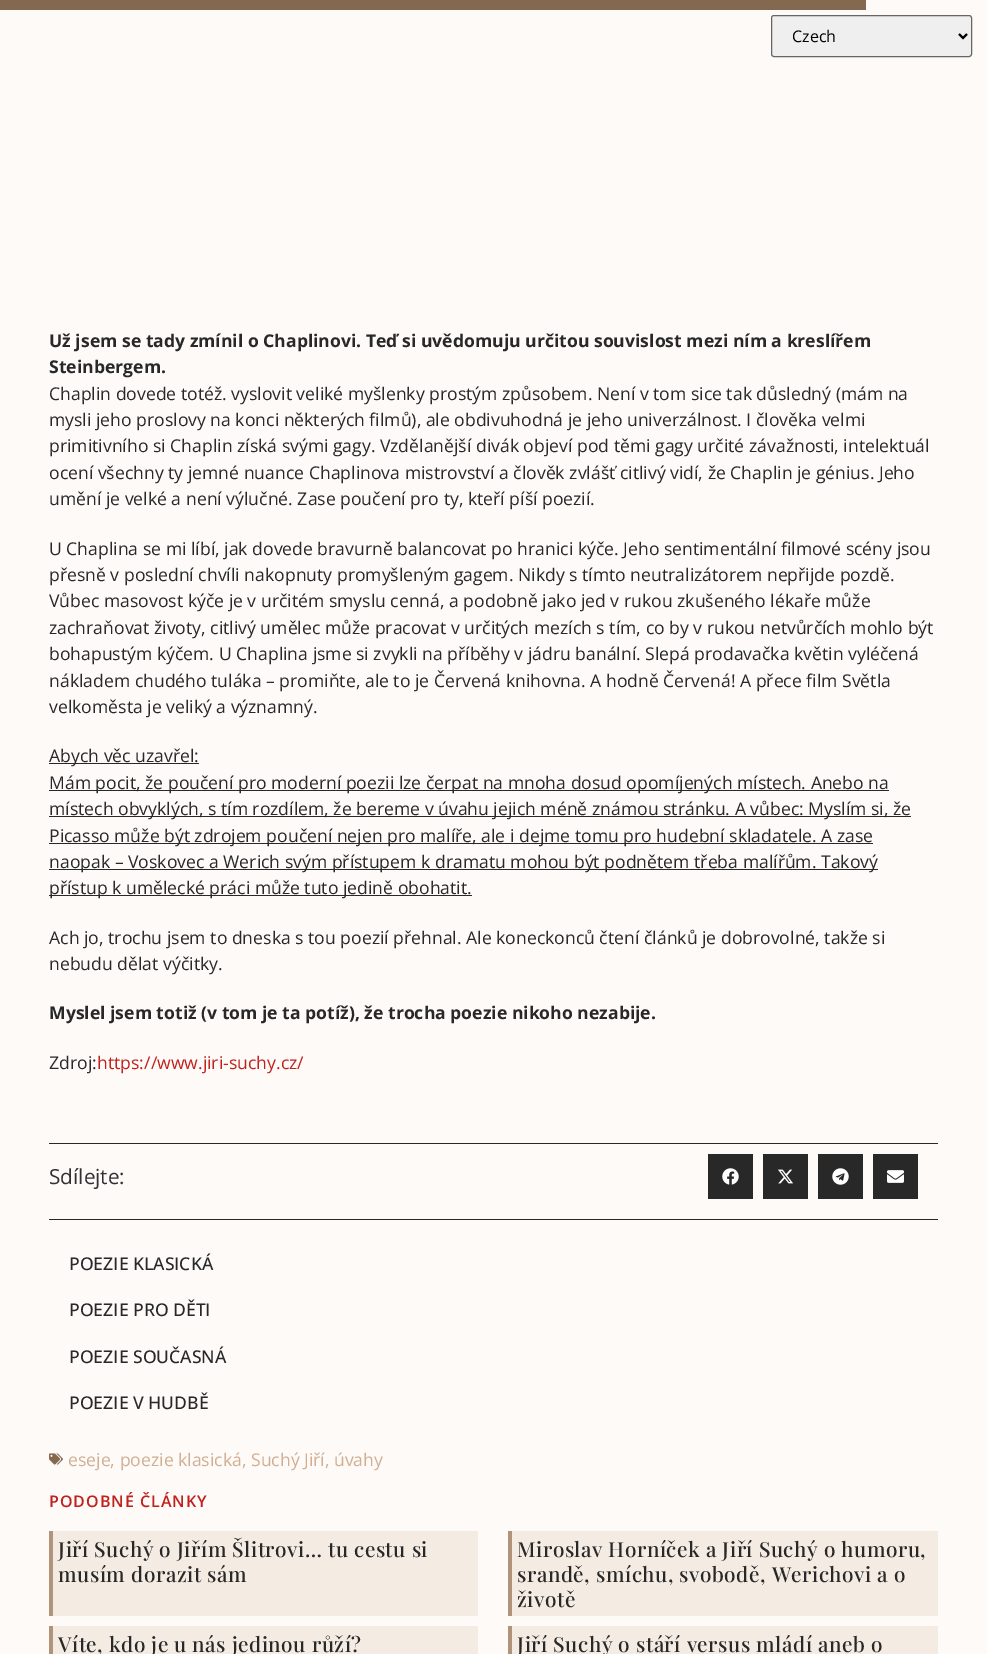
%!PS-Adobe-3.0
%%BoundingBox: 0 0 987 1654
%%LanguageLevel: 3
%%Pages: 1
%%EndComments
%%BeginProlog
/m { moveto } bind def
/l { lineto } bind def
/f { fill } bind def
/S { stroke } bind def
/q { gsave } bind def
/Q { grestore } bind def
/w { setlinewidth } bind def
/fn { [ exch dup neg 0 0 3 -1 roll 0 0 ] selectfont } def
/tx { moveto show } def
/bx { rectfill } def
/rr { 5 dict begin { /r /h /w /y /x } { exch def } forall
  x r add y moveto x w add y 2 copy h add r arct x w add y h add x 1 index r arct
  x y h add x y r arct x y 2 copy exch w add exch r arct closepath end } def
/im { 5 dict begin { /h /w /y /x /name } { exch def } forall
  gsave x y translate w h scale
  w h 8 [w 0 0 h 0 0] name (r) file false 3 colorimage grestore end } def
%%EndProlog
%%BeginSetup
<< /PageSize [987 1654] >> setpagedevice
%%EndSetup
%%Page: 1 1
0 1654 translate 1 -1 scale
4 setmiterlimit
0.992 0.98 0.973 setrgbcolor
0 0 987 1654 bx
0.937 setgray
771.5 15.5 200 41 2.5 rr q f Q
0.4 setgray
S
0 setgray
2 w
959 34 m 963 38 l 967 34 l S
/OpenSans-Regular 16 fn
(Czech) 792 42 tx
0.522 0.408 0.314 setrgbcolor
0 0 866 10 bx
/OpenSans-Bold 17.6 fn
0.157 setgray
(Už jsem se tady zmínil o Chaplinovi. Teď si uvědomuju určitou souvislost mezi ním a kreslířem) 49 347 tx
(Steinbergem.) 49 373 tx
/OpenSans-Regular 17.6 fn
(Chaplin dovede totéž. vyslovit veliké myšlenky prostým způsobem. Není v tom sice tak důsledný \(mám na) 49 400 tx
(mysli jeho proslovy na konci některých filmů\), ale obdivuhodná je jeho univerzálnost. I člověka velmi) 49 426 tx
(primitivního si Chaplin získá svými gagy. Vzdělanější divák objeví pod těmi gagy určité závažnosti, intelektuál) 49 452 tx
(ocení všechny ty jemné nuance Chaplinova mistrovství a člověk zvlášť citlivý vidí, že Chaplin je génius. Jeho) 49 479 tx
(umění je velké a není výlučné. Zase poučení pro ty, kteří píší poezií.) 49 505 tx
(U Chaplina se mi líbí, jak dovede bravurně balancovat po hranici kýče. Jeho sentimentální filmové scény jsou) 49 555 tx
(přesně v poslední chvíli nakopnuty promyšleným gagem. Nikdy s tímto neutralizátorem nepřijde pozdě.) 49 581 tx
(Vůbec masovost kýče je v určitém smyslu cenná, a podobně jako jed v rukou zkušeného lékaře může) 49 607 tx
(zachraňovat životy, citlivý umělec může pracovat v určitých mezích s tím, co by v rukou netvůrčích mohlo být) 49 634 tx
(bohapustým kýčem. U Chaplina jsme si zvykli na příběhy v jádru banální. Slepá prodavačka květin vyléčená) 49 660 tx
(nákladem chudého tuláka – promiňte, ale to je Červená knihovna. A hodně Červená! A přece film Světla) 49 687 tx
(velkoměsta je veliký a významný.) 49 713 tx
49 763 150 1 bx
(Abych věc uzavřel:) 49 762 tx
49 790 840 1 bx
(Mám pocit, že poučení pro moderní poezii lze čerpat na mnoha dosud opomíjených místech. Anebo na) 49 789 tx
49 816 862 1 bx
(místech obvyklých, s tím rozdílem, že bereme v úvahu jejich méně známou stránku. A vůbec: Myslím si, že) 49 815 tx
49 843 824 1 bx
(Picasso může být zdrojem poučení nejen pro malíře, ale i dejme tomu pro hudební skladatele. A zase) 49 842 tx
49 869 829 1 bx
(naopak – Voskovec a Werich svým přístupem k dramatu mohou být podnětem třeba malířům. Takový) 49 868 tx
49 895 423 1 bx
(přístup k umělecké práci může tuto jedině obohatit.) 49 894 tx
(Ach jo, trochu jsem to dneska s tou poezií přehnal. Ale koneckonců čtení článků je dobrovolné, takže si) 49 944 tx
(nebudu dělat výčitky.) 49 970 tx
/OpenSans-Bold 17.6 fn
(Myslel jsem totiž \(v tom je ta potíž\), že trocha poezie nikoho nezabije.) 49 1019 tx
/OpenSans-Regular 17.6 fn
(Zdroj:) 49 1069 tx
0.753 0.129 0.114 setrgbcolor
(https://www.jiri-suchy.cz/) 97 1069 tx
0.157 setgray
49 1143 889 1 bx
49 1219 889 1 bx
/OpenSans-Regular 20.75 fn
0.192 0.188 0.212 setrgbcolor
(Sdílejte:) 49 1184 tx
0.157 setgray
708 1154 45 45 bx
(image0.raw) 722 1168 17 17 im
763 1154 45 45 bx
(image1.raw) 778 1169 15 15 im
818 1154 45 45 bx
(image2.raw) 832 1168 17 17 im
873 1154 45 45 bx
(image3.raw) 887 1170 17 13 im
/OpenSans-Medium 17.6 fn
(POEZIE KLASICKÁ) 69 1270 tx
(POEZIE PRO DĚTI) 69 1316 tx
(POEZIE SOUČASNÁ) 69 1363 tx
(POEZIE V HUDBĚ) 69 1409 tx
(image4.raw) 49 1453 14 12 im
/OpenSans-Regular 17.6 fn
0.824 0.682 0.565 setrgbcolor
(eseje, poezie klasická, Suchý Jiří, úvahy) 68 1466 tx
/OpenSans-SemiBold 16 fn
0.753 0.129 0.114 setrgbcolor
49 1507 m 1 0 (PODOBNÉ ČLÁNKY) ashow
0.957 0.922 0.89 setrgbcolor
53 1531 425 85 bx
0.694 0.576 0.478 setrgbcolor
49 1531 4 85 bx
/PlayfairDisplay-Medium 20.75 fn
0.157 setgray
58 1557 m 0.5 0 (Jiří Suchý o Jiřím Šlitrovi… tu cestu si) ashow
58 1582 m 0.5 0 (musím dorazit sám) ashow
0.957 0.922 0.89 setrgbcolor
512 1531 426 85 bx
0.694 0.576 0.478 setrgbcolor
508 1531 4 85 bx
0.157 setgray
517 1557 m 0.5 0 (Miroslav Horníček a Jiří Suchý o humoru,) ashow
517 1582 m 0.5 0 (srandě, smíchu, svobodě, Werichovi a o) ashow
517 1607 m 0.5 0 (životě) ashow
0.957 0.922 0.89 setrgbcolor
53 1626 425 28 bx
0.694 0.576 0.478 setrgbcolor
49 1626 4 28 bx
0.157 setgray
58 1652 m 0.5 0 (Víte, kdo je u nás jedinou růží?) ashow
0.957 0.922 0.89 setrgbcolor
512 1626 426 28 bx
0.694 0.576 0.478 setrgbcolor
508 1626 4 28 bx
0.157 setgray
517 1652 m 0.5 0 (Jiří Suchý o stáří versus mládí aneb o) ashow
showpage
%%EOF
